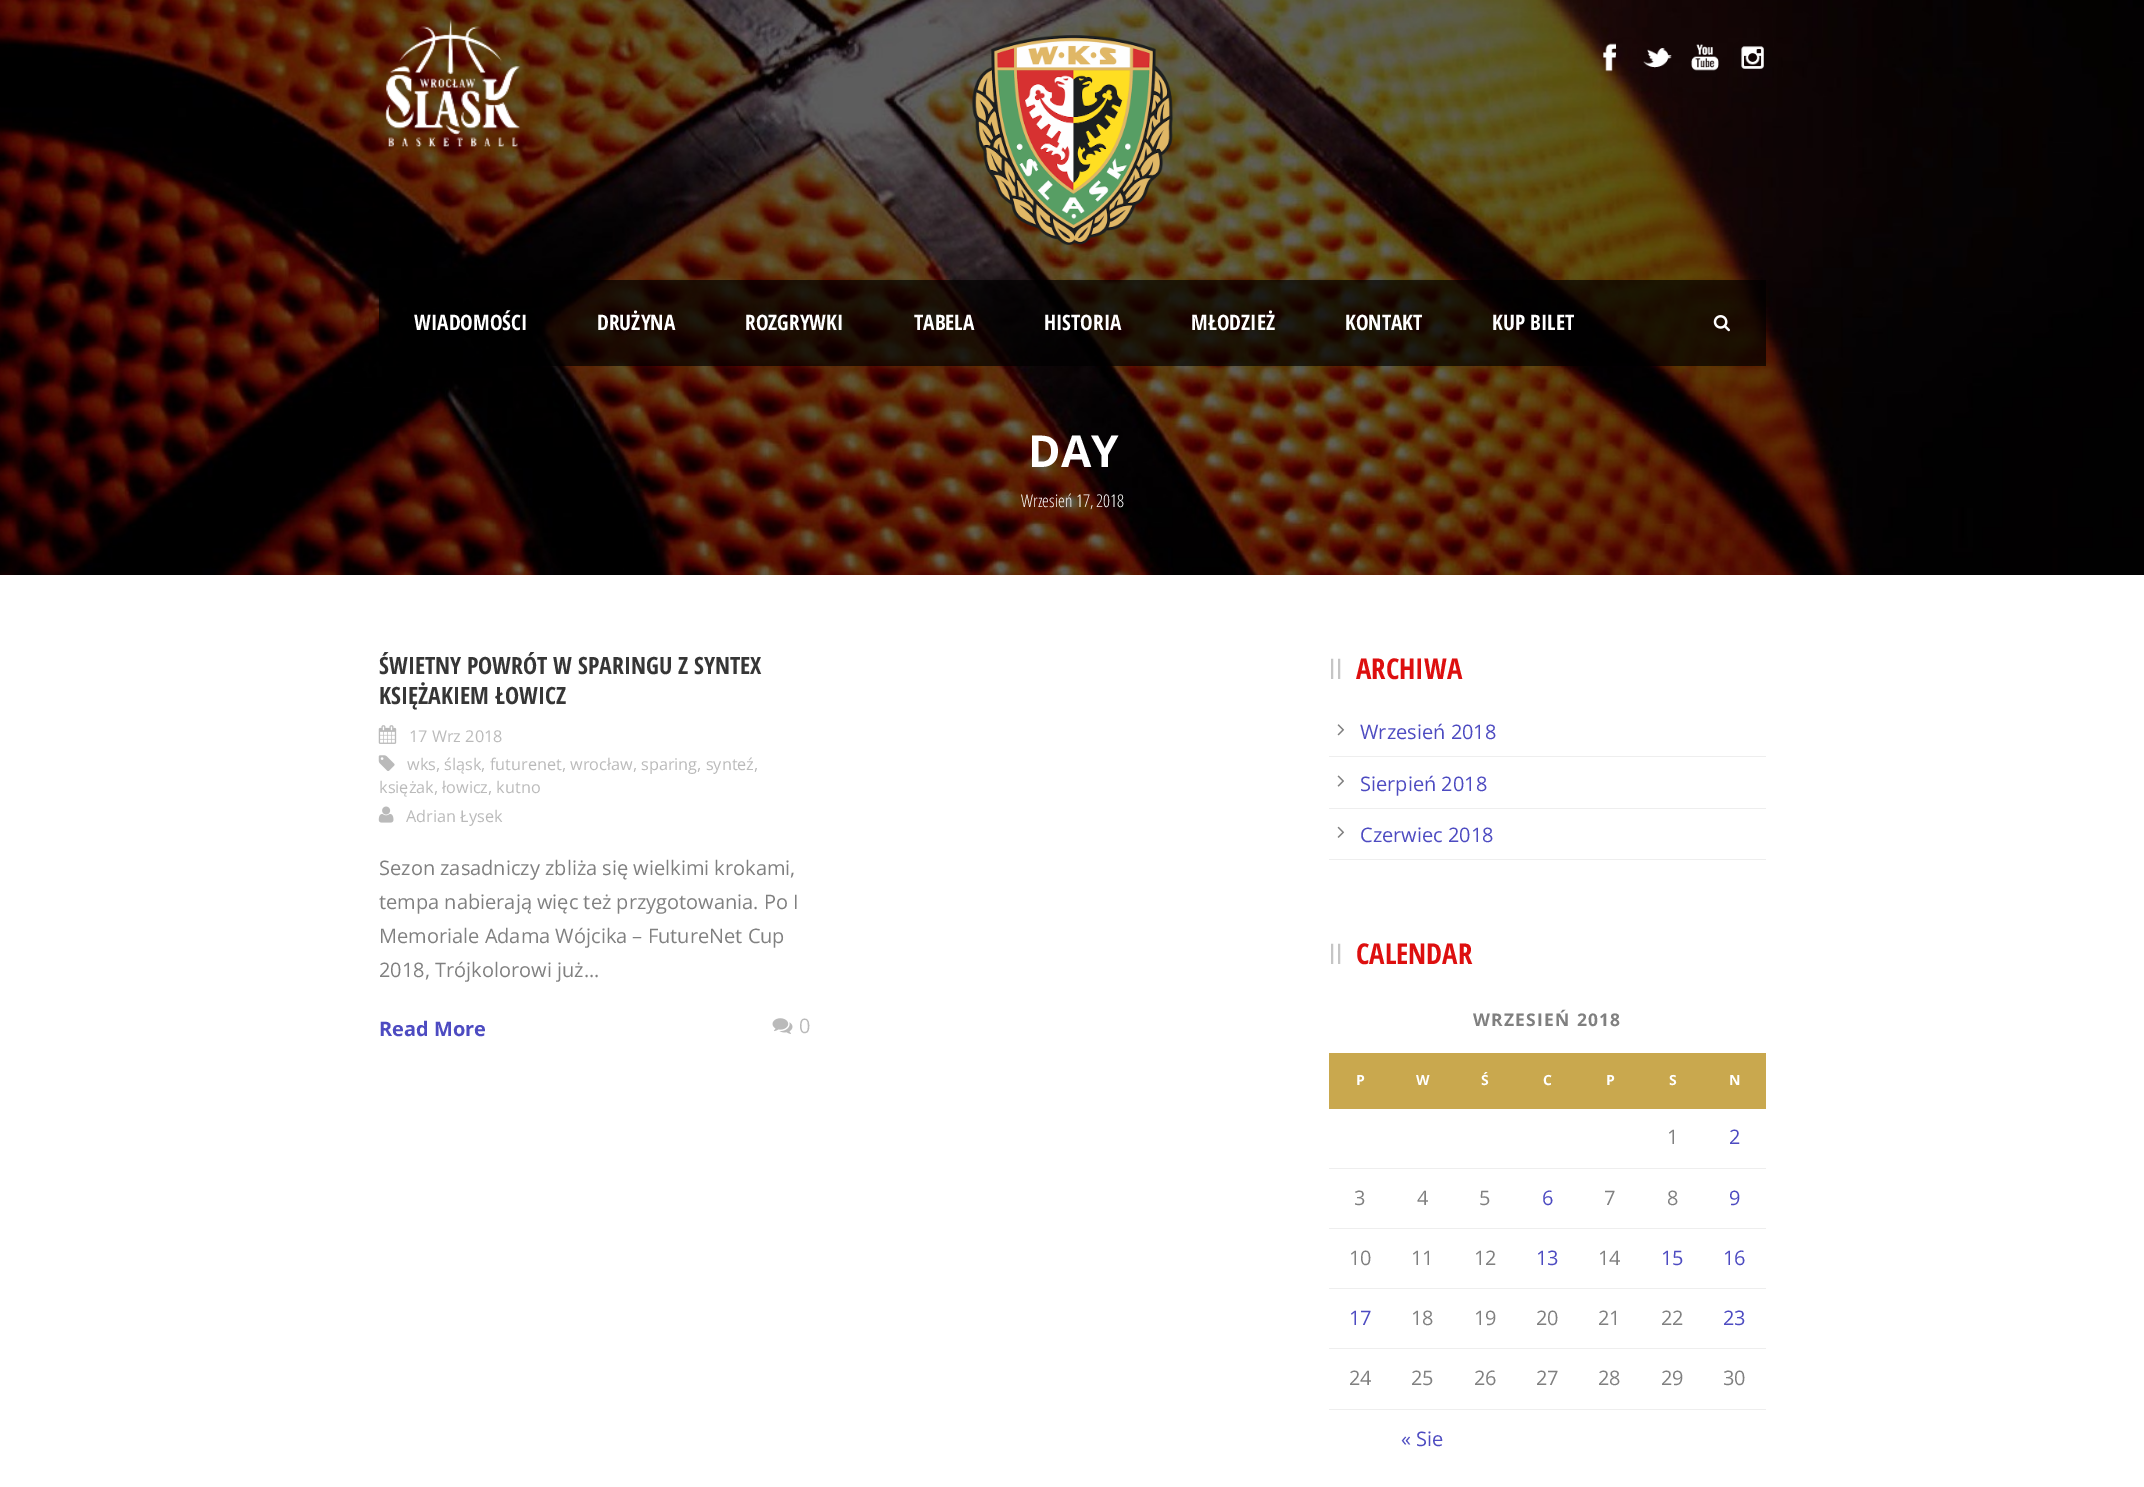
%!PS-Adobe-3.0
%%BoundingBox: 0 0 2144 1487
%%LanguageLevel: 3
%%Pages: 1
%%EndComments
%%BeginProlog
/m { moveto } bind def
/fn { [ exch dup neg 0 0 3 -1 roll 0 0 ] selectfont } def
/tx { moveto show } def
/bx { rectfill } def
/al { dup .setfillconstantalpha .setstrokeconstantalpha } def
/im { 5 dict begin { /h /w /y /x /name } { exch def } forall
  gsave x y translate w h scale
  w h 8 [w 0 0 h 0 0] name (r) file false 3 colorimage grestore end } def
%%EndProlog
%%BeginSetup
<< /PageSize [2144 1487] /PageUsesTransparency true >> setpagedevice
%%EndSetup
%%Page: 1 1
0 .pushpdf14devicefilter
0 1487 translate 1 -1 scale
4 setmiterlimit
1 setgray
0 0 2144 1487 bx
(image0.raw) 0 0 2144 575 im
(image1.raw) 385 19 135 128 im
(image2.raw) 1603 43 13 29 im
(image3.raw) 1643 48 29 20 im
(image4.raw) 1691 44 28 27 im
(image5.raw) 1741 46 23 23 im
(image6.raw) 972 35 201 210 im
0.7 al
0 setgray
379 280 1387 86 bx
/OpenSansCondensed-Bold 21.25 fn
1 al
1 setgray
(WIADOMOŚCI) 414 330 tx
(DRUŻYNA) 597 330 tx
(ROZGRYWKI) 745 330 tx
(TABELA) 914 330 tx
(HISTORIA) 1044 330 tx
(MŁODZIEŻ) 1191 330 tx
(KONTAKT) 1345 330 tx
(KUP BILET) 1492 330 tx
(image7.raw) 1713 315 17 17 im
/OpenSans-Bold 44 fn
(DAY) 1028 467 tx
/OpenSansCondensed-Light 17.5 fn
(Wrzesień 17, 2018) 1021 507 tx
/OpenSansCondensed-Bold 23.75 fn
0.212 setgray
(ŚWIETNY POWRÓT W SPARINGU Z SYNTEX) 379 674 tx
(KSIĘŻAKIEM ŁOWICZ) 379 704 tx
(image8.raw) 378 725 19 19 im
/OpenSans-Regular 16.25 fn
0.729 setgray
(17 Wrz 2018) 409 742 tx
(image9.raw) 378 755 17 16 im
(wks, śląsk, futurenet, wrocław, sparing, synteź,) 407 770 tx
(księżak, łowicz, kutno) 379 793 tx
(image10.raw) 378 806 16 17 im
(Adrian Łysek) 406 822 tx
/OpenSans-Regular 20 fn
0.502 setgray
(Sezon zasadniczy zbliża się wielkimi krokami,) 379 875 tx
(tempa nabierają więc też przygotowania. Po I) 379 909 tx
(Memoriale Adama Wójcika – FutureNet Cup) 379 943 tx
(2018, Trójkolorowi już...) 379 977 tx
/OpenSans-Bold 20 fn
0.302 0.294 0.757 setrgbcolor
(Read More) 379 1036 tx
(image11.raw) 772 1018 21 16 im
/OpenSans-Regular 20 fn
0.729 setgray
(0) 799 1033 tx
/LiberationSans-Regular 28 fn
0.773 setgray
1329 679 m 1.25 0 (ll) ashow
/OpenSansCondensed-Bold 28.75 fn
0.867 0.059 0.059 setrgbcolor
(ARCHIWA) 1356 679 tx
0.933 setgray
1329 756 437 1 bx
(image12.raw) 1337 724 8 12 im
/OpenSans-Regular 20 fn
0.302 0.294 0.757 setrgbcolor
(Wrzesień 2018) 1360 739 tx
0.933 setgray
1329 808 437 1 bx
(image13.raw) 1337 775 7 12 im
0.302 0.294 0.757 setrgbcolor
(Sierpień 2018) 1360 791 tx
0.933 setgray
1329 859 437 1 bx
(image14.raw) 1337 826 8 12 im
0.302 0.294 0.757 setrgbcolor
(Czerwiec 2018) 1360 842 tx
/LiberationSans-Regular 28 fn
0.773 setgray
1329 964 m 1.25 0 (ll) ashow
/OpenSansCondensed-Bold 28.75 fn
0.867 0.059 0.059 setrgbcolor
(CALENDAR) 1356 964 tx
/OpenSans-Bold 17.5 fn
0.502 setgray
1473 1026 m 1.25 0 (WRZESIEŃ 2018) ashow
0.788 0.659 0.306 setrgbcolor
1329 1053 437 56 bx
/OpenSans-Bold 14 fn
1 setgray
(P) 1356 1085 tx
(W) 1416 1085 tx
(Ś) 1481 1085 tx
(C) 1543 1085 tx
(P) 1606 1085 tx
(S) 1669 1085 tx
(N) 1729 1085 tx
/OpenSans-Regular 20 fn
0.502 setgray
(1) 1667 1144 tx
0.933 setgray
1329 1168 437 1 bx
0.302 0.294 0.757 setrgbcolor
(2) 1729 1144 tx
0.502 setgray
(3) 1354 1205 tx
(4) 1417 1205 tx
(5) 1479 1205 tx
0.302 0.294 0.757 setrgbcolor
(6) 1542 1205 tx
0.502 setgray
(7) 1604 1205 tx
(8) 1667 1205 tx
0.933 setgray
1329 1228 437 1 bx
0.302 0.294 0.757 setrgbcolor
(9) 1729 1205 tx
0.502 setgray
(10) 1349 1265 tx
(11) 1411 1265 tx
(12) 1474 1265 tx
0.302 0.294 0.757 setrgbcolor
(13) 1536 1265 tx
0.502 setgray
(14) 1598 1265 tx
0.302 0.294 0.757 setrgbcolor
(15) 1661 1265 tx
0.933 setgray
1329 1288 437 1 bx
0.302 0.294 0.757 setrgbcolor
(16) 1723 1265 tx
(17) 1349 1325 tx
0.502 setgray
(18) 1411 1325 tx
(19) 1474 1325 tx
(20) 1536 1325 tx
(21) 1598 1325 tx
(22) 1661 1325 tx
0.933 setgray
1329 1348 437 1 bx
0.302 0.294 0.757 setrgbcolor
(23) 1723 1325 tx
0.502 setgray
(24) 1349 1385 tx
(25) 1411 1385 tx
(26) 1474 1385 tx
(27) 1536 1385 tx
(28) 1598 1385 tx
(29) 1661 1385 tx
0.933 setgray
1329 1409 437 1 bx
0.502 setgray
(30) 1723 1385 tx
0.302 0.294 0.757 setrgbcolor
(« Sie) 1401 1446 tx
.poppdf14devicefilter showpage
%%EOF
